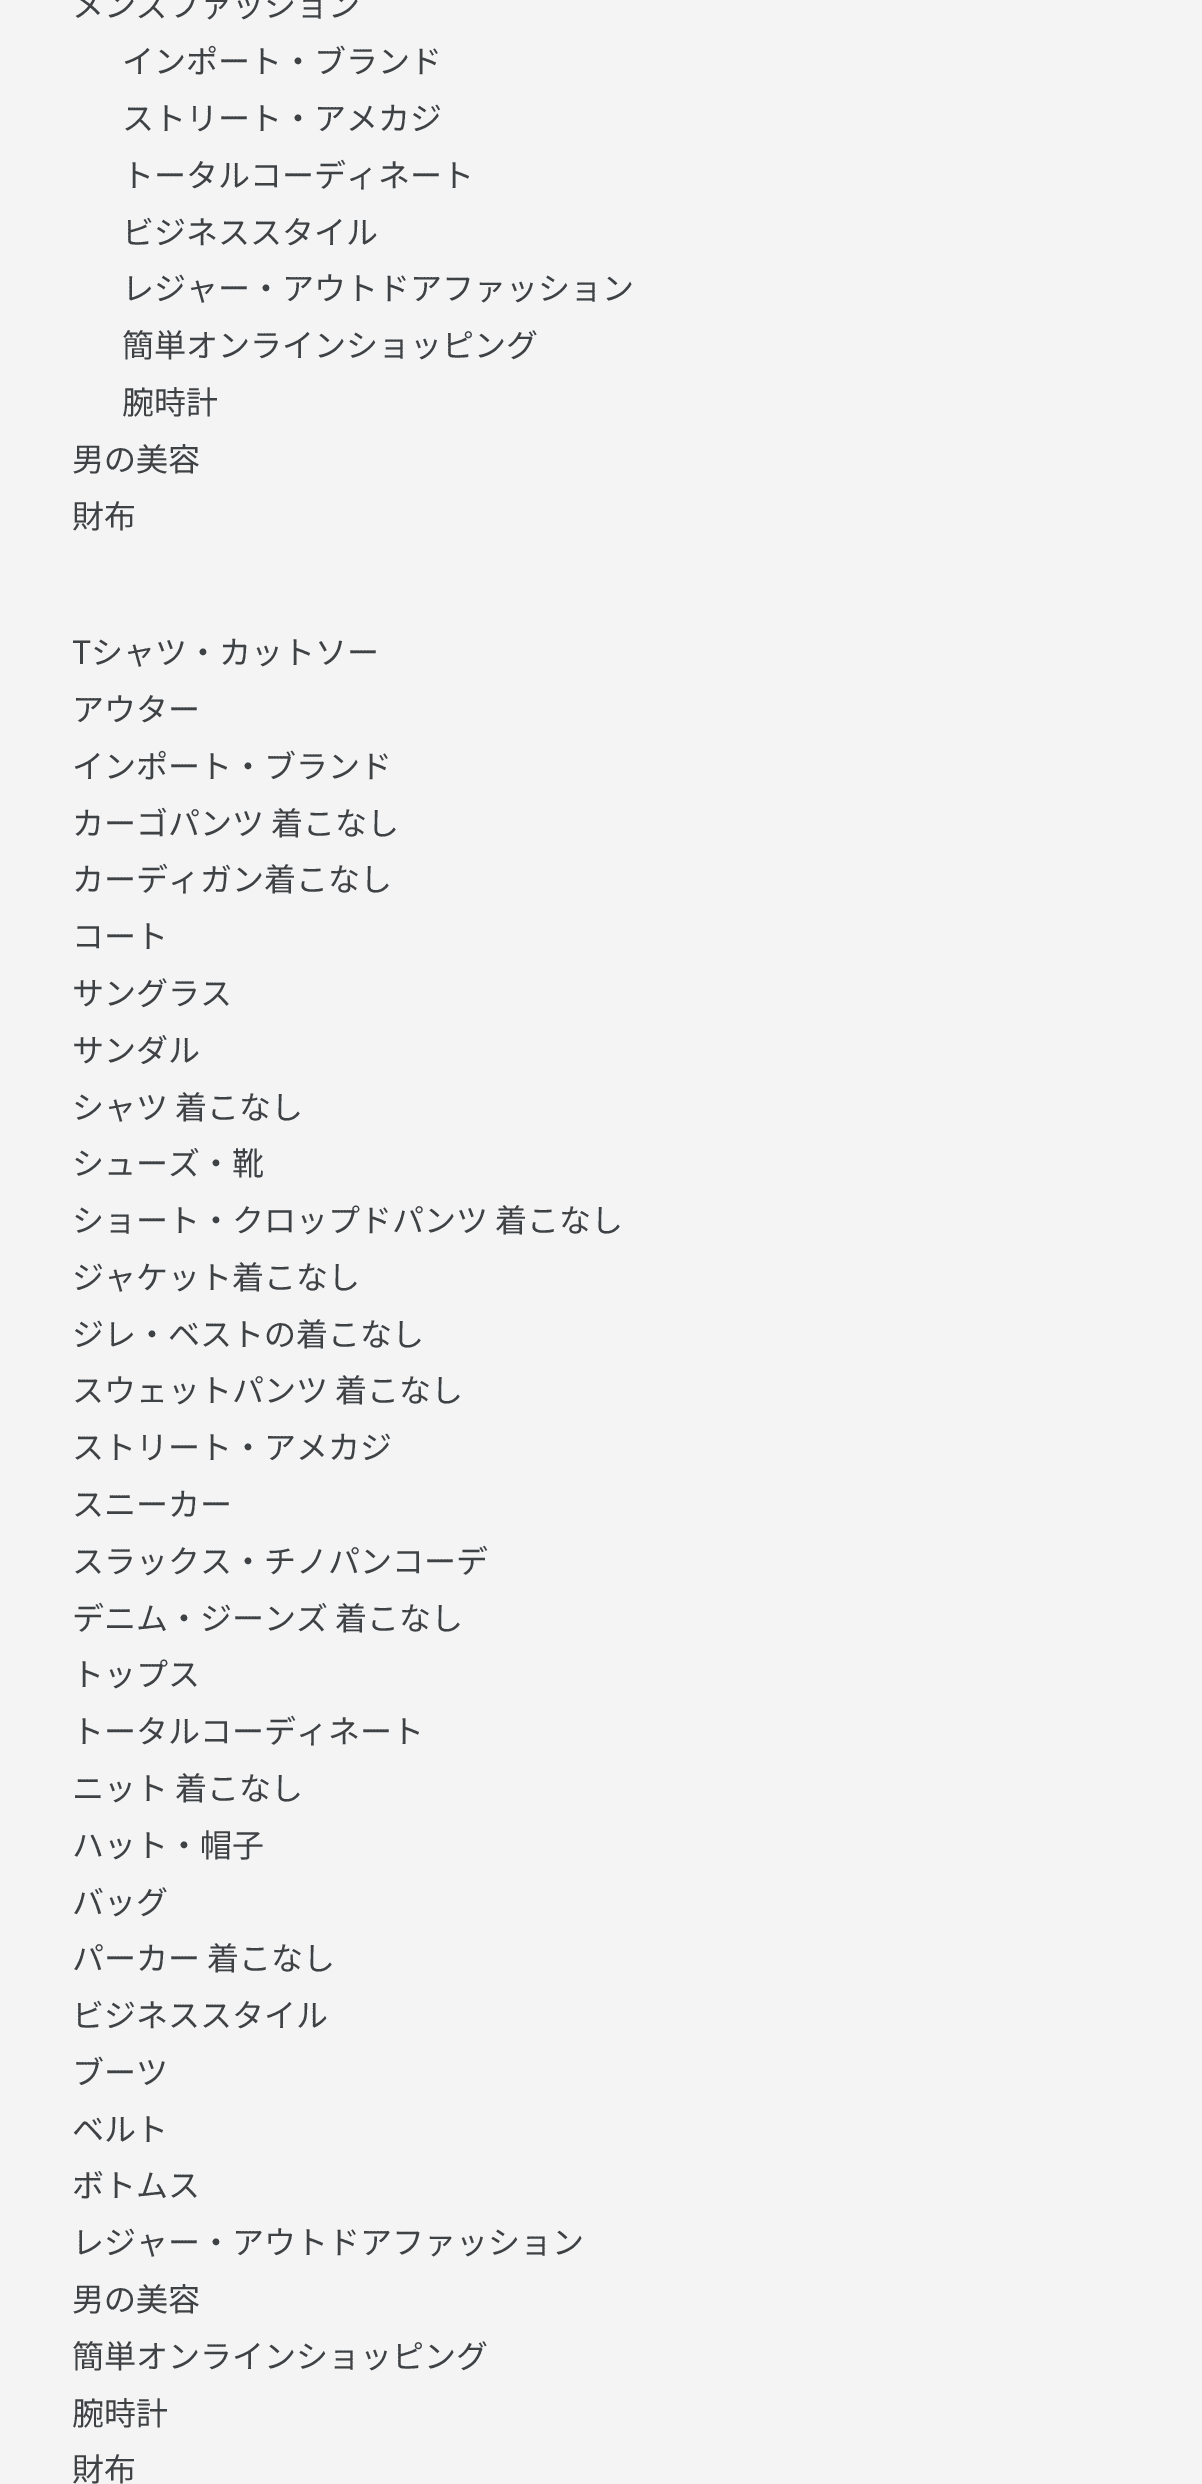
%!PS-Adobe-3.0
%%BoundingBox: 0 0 1202 2484
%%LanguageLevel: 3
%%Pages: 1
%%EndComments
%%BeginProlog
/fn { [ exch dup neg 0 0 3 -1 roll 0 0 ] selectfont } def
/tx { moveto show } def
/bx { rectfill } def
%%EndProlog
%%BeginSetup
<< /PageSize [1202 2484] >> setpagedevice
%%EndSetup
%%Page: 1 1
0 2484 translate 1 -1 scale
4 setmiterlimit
0.957 0.957 0.961 setrgbcolor
0 0 1202 2484 bx
/NotoSansJP-Regular 32 fn
0.247 0.259 0.271 setrgbcolor
(メンズファッション) 72 17 tx
(インポート・ブランド) 122 73 tx
(ストリート・アメカジ) 122 130 tx
(トータルコーディネート) 122 187 tx
(ビジネススタイル) 122 244 tx
(レジャー・アウトドアファッション) 122 300 tx
(簡単オンラインショッピング) 122 357 tx
(腕時計) 122 414 tx
(男の美容) 72 471 tx
(財布) 72 528 tx
(Tシャツ・カットソー) 72 664 tx
(アウター) 72 721 tx
(インポート・ブランド) 72 778 tx
(カーゴパンツ 着こなし) 72 835 tx
(カーディガン着こなし) 72 891 tx
(コート) 72 948 tx
(サングラス) 72 1005 tx
(サンダル) 72 1062 tx
(シャツ 着こなし) 72 1119 tx
(シューズ・靴) 72 1175 tx
(ショート・クロップドパンツ 着こなし) 72 1232 tx
(ジャケット着こなし) 72 1289 tx
(ジレ・ベストの着こなし) 72 1346 tx
(スウェットパンツ 着こなし) 72 1402 tx
(ストリート・アメカジ) 72 1459 tx
(スニーカー) 72 1516 tx
(スラックス・チノパンコーデ) 72 1573 tx
(デニム・ジーンズ 着こなし) 72 1630 tx
(トップス) 72 1686 tx
(トータルコーディネート) 72 1743 tx
(ニット 着こなし) 72 1800 tx
(ハット・帽子) 72 1857 tx
(バッグ) 72 1914 tx
(パーカー 着こなし) 72 1970 tx
(ビジネススタイル) 72 2027 tx
(ブーツ) 72 2084 tx
(ベルト) 72 2141 tx
(ボトムス) 72 2197 tx
(レジャー・アウトドアファッション) 72 2254 tx
(男の美容) 72 2311 tx
(簡単オンラインショッピング) 72 2368 tx
(腕時計) 72 2425 tx
(財布) 72 2481 tx
showpage
%%EOF
